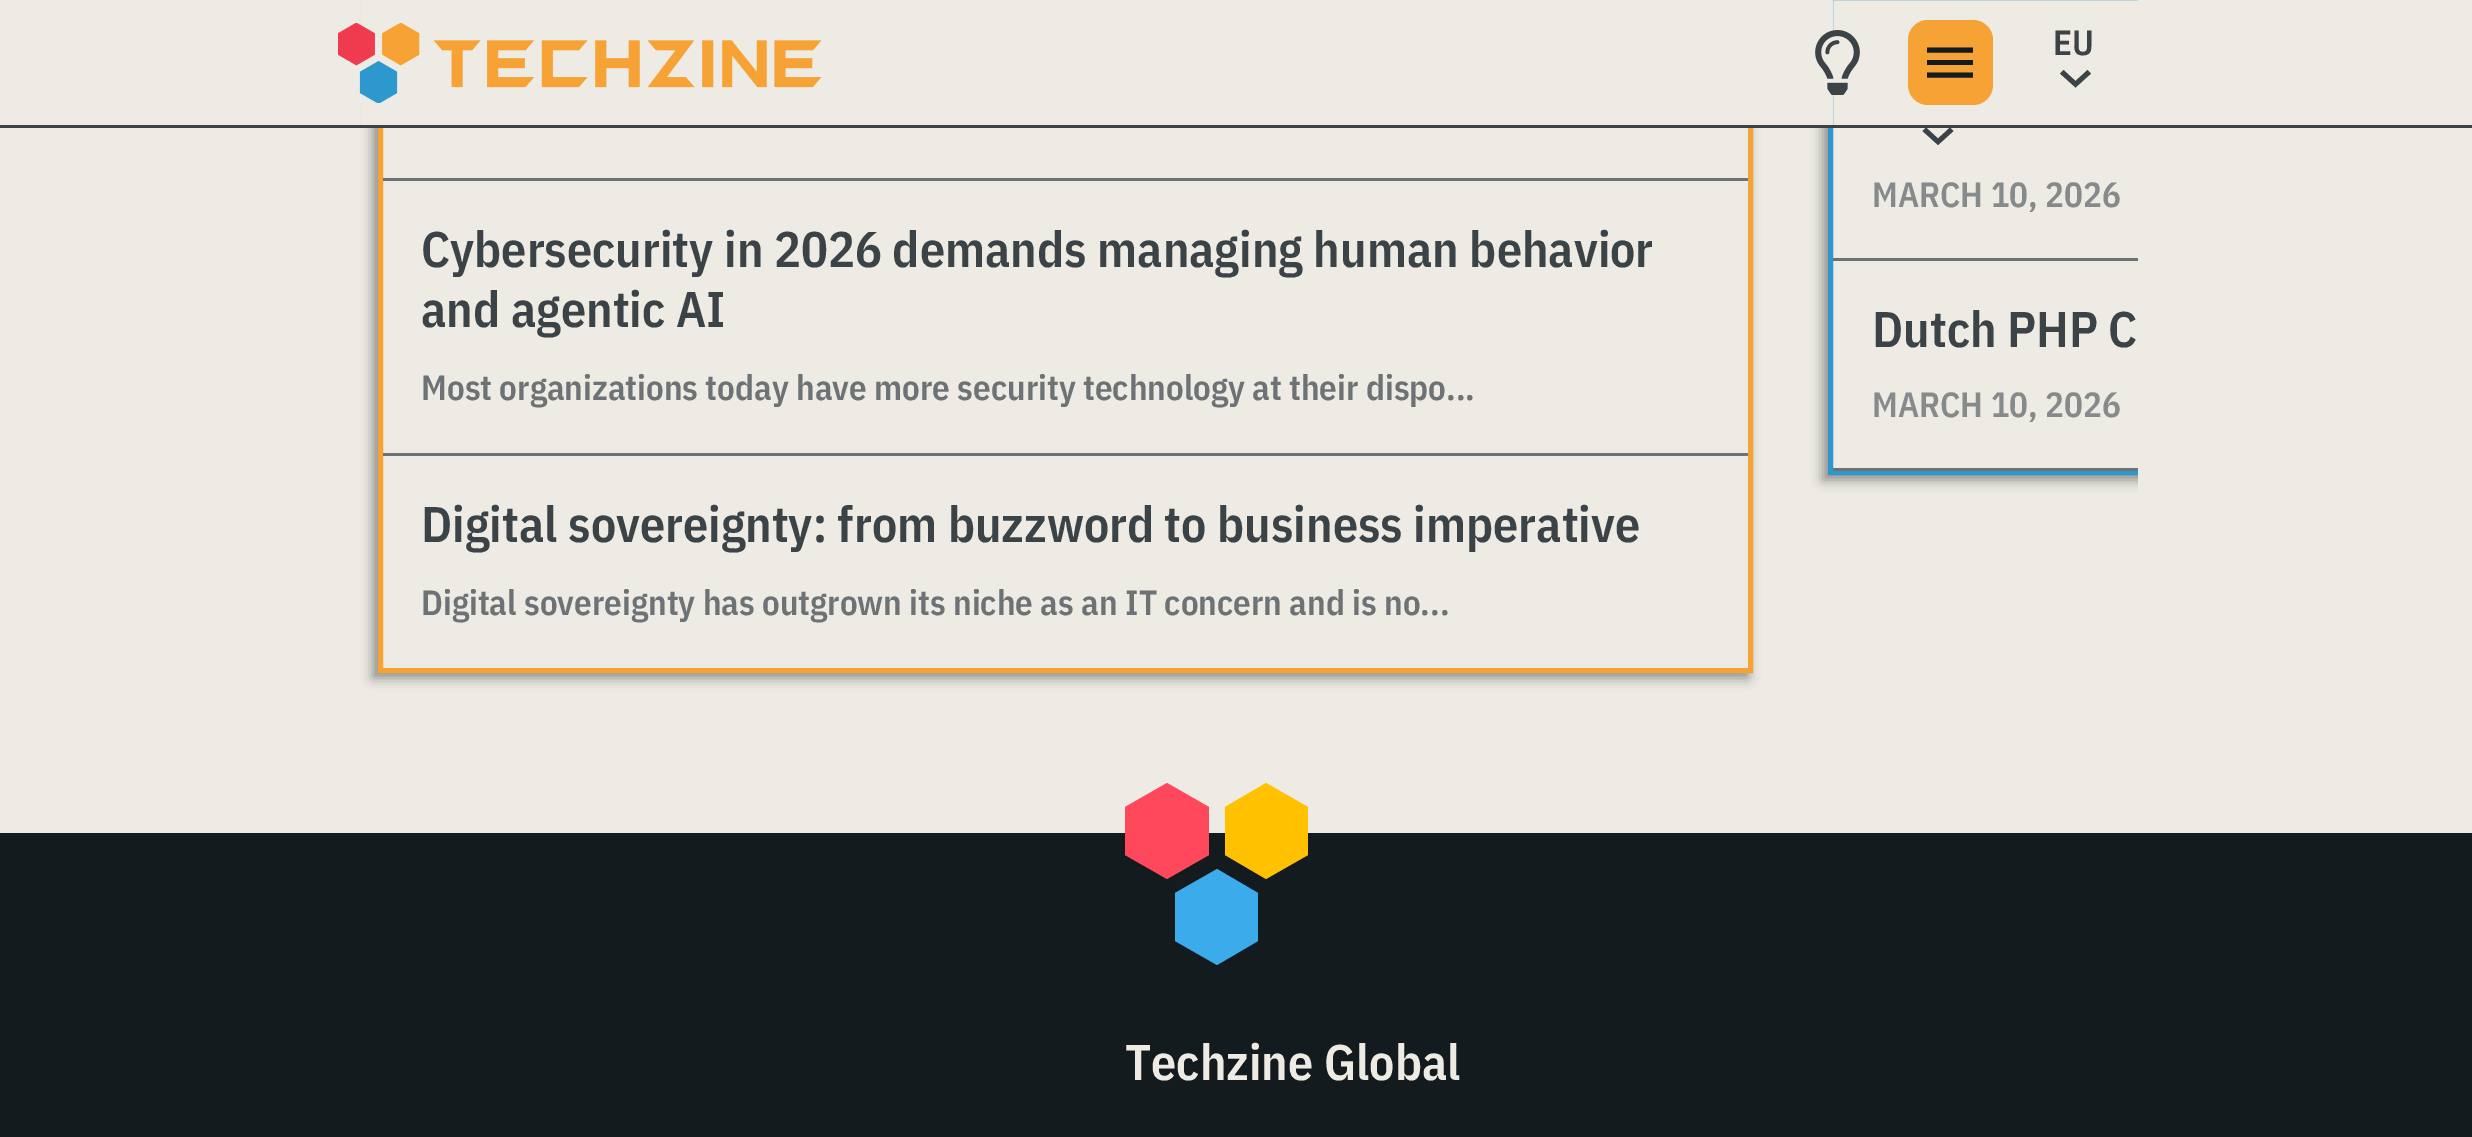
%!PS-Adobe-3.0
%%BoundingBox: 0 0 2472 1137
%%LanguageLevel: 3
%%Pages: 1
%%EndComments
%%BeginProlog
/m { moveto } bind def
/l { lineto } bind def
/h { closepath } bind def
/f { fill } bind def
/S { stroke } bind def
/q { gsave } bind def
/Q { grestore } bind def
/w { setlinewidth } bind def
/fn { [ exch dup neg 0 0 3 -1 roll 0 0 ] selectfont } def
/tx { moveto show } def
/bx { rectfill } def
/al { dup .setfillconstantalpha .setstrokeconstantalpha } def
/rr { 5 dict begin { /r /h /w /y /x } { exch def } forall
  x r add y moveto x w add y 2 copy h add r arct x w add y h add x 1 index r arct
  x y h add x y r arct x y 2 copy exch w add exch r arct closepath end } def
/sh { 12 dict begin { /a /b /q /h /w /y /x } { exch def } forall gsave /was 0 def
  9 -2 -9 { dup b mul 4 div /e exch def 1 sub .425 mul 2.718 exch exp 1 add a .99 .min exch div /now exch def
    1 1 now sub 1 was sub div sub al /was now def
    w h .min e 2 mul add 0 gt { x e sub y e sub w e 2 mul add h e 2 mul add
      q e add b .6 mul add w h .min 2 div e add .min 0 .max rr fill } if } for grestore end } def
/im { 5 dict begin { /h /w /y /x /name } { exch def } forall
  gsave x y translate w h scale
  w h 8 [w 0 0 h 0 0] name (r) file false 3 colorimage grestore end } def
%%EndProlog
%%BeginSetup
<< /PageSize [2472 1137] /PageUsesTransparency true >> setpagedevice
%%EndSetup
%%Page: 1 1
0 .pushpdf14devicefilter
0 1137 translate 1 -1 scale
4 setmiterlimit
0.929 0.922 0.894 setrgbcolor
0 0 2472 1137 bx
q
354 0 m 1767 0 l 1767 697 l 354 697 l h 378 -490 m 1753 -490 l 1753 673 l 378 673 l h eoclip newpath
0 setgray
373 -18 1375 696 0 6 0.4 sh
Q
0.965 0.635 0.204 setrgbcolor
5 w
380.5 -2.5 1370 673 rectstroke
q
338 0 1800 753 rectclip
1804 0 m 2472 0 l 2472 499 l 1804 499 l h 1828 -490 m 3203 -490 l 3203 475 l 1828 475 l h eoclip newpath
0 setgray
1823 -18 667 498 0 6 0.4 sh
Q
q
338 0 1800 753 rectclip
0.173 0.596 0.808 setrgbcolor
1830.5 -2.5 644 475 rectstroke
Q
0.929 0.922 0.894 setrgbcolor
362 0 1471 125 bx
0.231 0.263 0.275 setrgbcolor
0 125 2472 3 bx
(image0.raw) 338 23 484 80 im
(image1.raw) 1815 30 45 65 im
0.965 0.635 0.204 setrgbcolor
1908 20 85 85 20 rr f
0.075 0.106 0.118 setrgbcolor
2 setlinecap
1 setlinejoin
1929.5 75 m 1970.5 75 l S
1927 60 46 5 bx
1929.5 50 m 1970.5 50 l S
0.231 0.263 0.275 setrgbcolor
1953.5 131 m 1938 145 l 1922.5 131 l 1926 127.5 l 1938 138.5 l 1950 127.5 l h f
/IBMPlexSansCondensed-SemiBold 35 fn
(EU) 2053 55 tx
2091 73.5 m 2075.5 87.5 l 2060 73.5 l 2063.5 70 l 2075.5 81 l 2087.5 70 l h f
0.427 0.447 0.455 setrgbcolor
383 178 1365 3 bx
383 453 1365 3 bx
/IBMPlexSansCondensed-SemiBold 50 fn
0.231 0.263 0.275 setrgbcolor
(Cybersecurity in 2026 demands managing human behavior) 421 267 tx
(and agentic AI) 421 327 tx
/IBMPlexSansCondensed-SemiBold 35 fn
0.427 0.447 0.455 setrgbcolor
(Most organizations today have more security technology at their dispo...) 421 400 tx
/IBMPlexSansCondensed-SemiBold 50 fn
0.231 0.263 0.275 setrgbcolor
(Digital sovereignty: from buzzword to business imperative) 421 542 tx
/IBMPlexSansCondensed-SemiBold 35 fn
0.427 0.447 0.455 setrgbcolor
(Digital sovereignty has outgrown its niche as an IT concern and is no...) 421 615 tx
1833 258 305 3 bx
0.529 0.541 0.541 setrgbcolor
(MARCH 10, 2026) 1872 207 tx
0.427 0.447 0.455 setrgbcolor
1833 468 305 3 bx
/IBMPlexSansCondensed-SemiBold 50 fn
0.231 0.263 0.275 setrgbcolor
(Dutch PHP C) 1872 347 tx
/IBMPlexSansCondensed-SemiBold 35 fn
0.529 0.541 0.541 setrgbcolor
(MARCH 10, 2026) 1872 417 tx
0.075 0.106 0.118 setrgbcolor
0 833 2472 304 bx
1 0.282 0.361 setrgbcolor
1125 807 m 1125 855 l 1167 879 l 1209 855 l 1209 807 l 1167 783 l h eofill
1 0.757 0 setrgbcolor
1225 807 m 1225 855 l 1266 879 l 1308 855 l 1308 807 l 1266 783 l h eofill
0.231 0.671 0.922 setrgbcolor
1175 893 m 1175 941 l 1217 965 l 1258 941 l 1258 893 l 1217 869 l h eofill
/IBMPlexSansCondensed-SemiBold 50 fn
0.929 0.922 0.894 setrgbcolor
(Techzine Global) 1125 1080 tx
.poppdf14devicefilter showpage
%%EOF
